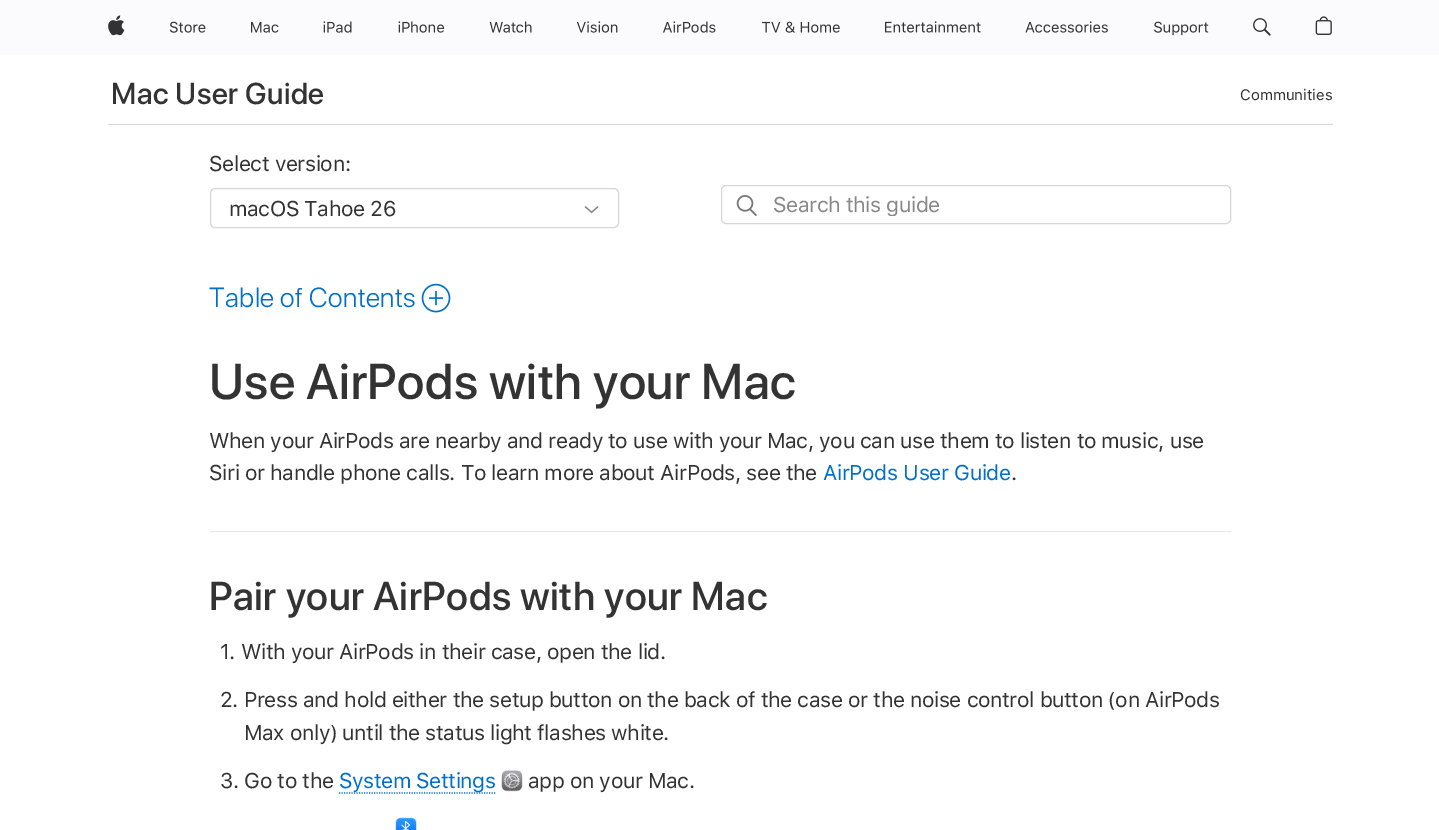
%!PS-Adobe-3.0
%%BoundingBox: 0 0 1439 830
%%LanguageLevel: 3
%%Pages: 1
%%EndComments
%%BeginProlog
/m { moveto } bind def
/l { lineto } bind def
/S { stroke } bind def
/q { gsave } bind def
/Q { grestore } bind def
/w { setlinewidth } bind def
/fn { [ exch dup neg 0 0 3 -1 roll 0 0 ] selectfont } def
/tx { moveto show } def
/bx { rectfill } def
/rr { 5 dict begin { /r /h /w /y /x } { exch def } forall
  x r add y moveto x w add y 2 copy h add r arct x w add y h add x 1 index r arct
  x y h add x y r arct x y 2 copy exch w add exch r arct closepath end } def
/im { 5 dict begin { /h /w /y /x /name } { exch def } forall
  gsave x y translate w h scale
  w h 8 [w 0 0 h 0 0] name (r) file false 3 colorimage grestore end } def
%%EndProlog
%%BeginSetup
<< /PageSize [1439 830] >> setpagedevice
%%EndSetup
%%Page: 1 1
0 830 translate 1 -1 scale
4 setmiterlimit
1 setgray
0 0 1439 830 bx
0.984 0.984 0.992 setrgbcolor
0 0 1439 55 bx
(image0.raw) 108 15 17 21 im
(image1.raw) 169 21 37 12 im
(image2.raw) 251 21 28 12 im
(image3.raw) 323 21 29 12 im
(image4.raw) 398 21 47 12 im
(image5.raw) 489 21 43 12 im
(image6.raw) 576 21 42 12 im
(image7.raw) 663 21 53 12 im
(image8.raw) 762 21 78 12 im
(image9.raw) 885 21 96 12 im
(image10.raw) 1025 21 83 12 im
(image11.raw) 1154 21 55 15 im
(image12.raw) 1253 18 18 18 im
(image13.raw) 1315 16 17 19 im
/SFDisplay-Medium 30 fn
0.2 setgray
111 104 m 0.5 0 (Mac User Guide) ashow
/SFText-Regular 15 fn
(Communities) 1240 100 tx
0.839 setgray
108 124 1225 1 bx
/SFText-Regular 21.25 fn
0.2 setgray
209 171 m -0.45 0 (Select version:) ashow
0.839 setgray
210.5 188.5 408 39 4.5 rr S
0.2 setgray
229 216 m -0.45 0 (macOS Tahoe 26) ashow
(image14.raw) 584 206 15 8 im
0.839 setgray
721.5 185.5 509 38 4.5 rr S
(image15.raw) 736 195 21 22 im
q
774 191 412 25 rectclip
0.533 setgray
773 212 m -0.45 0 (Search this guide) ashow
Q
/SFDisplay-Light 27.5 fn
0 0.439 0.788 setrgbcolor
209 307 m 0.45 0 (Table of Contents) ashow
(image16.raw) 421 283 30 30 im
/SFDisplay-Medium 50 fn
0.2 setgray
209 399 m 0.4 0 (Use AirPods with your Mac) ashow
/SFText-Regular 21.25 fn
209 448 m -0.45 0 (When your AirPods are nearby and ready to use with your Mac, you can use them to listen to music, use) ashow
209 480 m -0.45 0 (Siri or handle phone calls. To learn more about AirPods, see the) ashow
0 0.439 0.788 setrgbcolor
823 480 m -0.45 0 (AirPods User Guide) ashow
0.2 setgray
1011 480 m -0.45 0 (.) ashow
0.902 setgray
210 531 1021 1 bx
/SFDisplay-Medium 40 fn
0.2 setgray
209 610 m 0.45 0 (Pair your AirPods with your Mac) ashow
/SFText-Regular 21.25 fn
220 659 m -0.45 0 (1. With your AirPods in their case, open the lid.) ashow
220 707 m -0.45 0 (2. Press and hold either the setup button on the back of the case or the noise control button \(on AirPods) ashow
244 740 m -0.45 0 (Max only\) until the status light flashes white.) ashow
220 788 m -0.45 0 (3. Go to the) ashow
0 0.439 0.788 setrgbcolor
1.2 w
[1.25 1.25] 0 setdash
339 793 m 496 793 l S
339 788 m -0.45 0 (System Settings) ashow
(image17.raw) 501 770 22 22 im
0.2 setgray
528 788 m -0.45 0 (app on your Mac.) ashow
(image18.raw) 395 817 22 13 im
showpage
%%EOF
